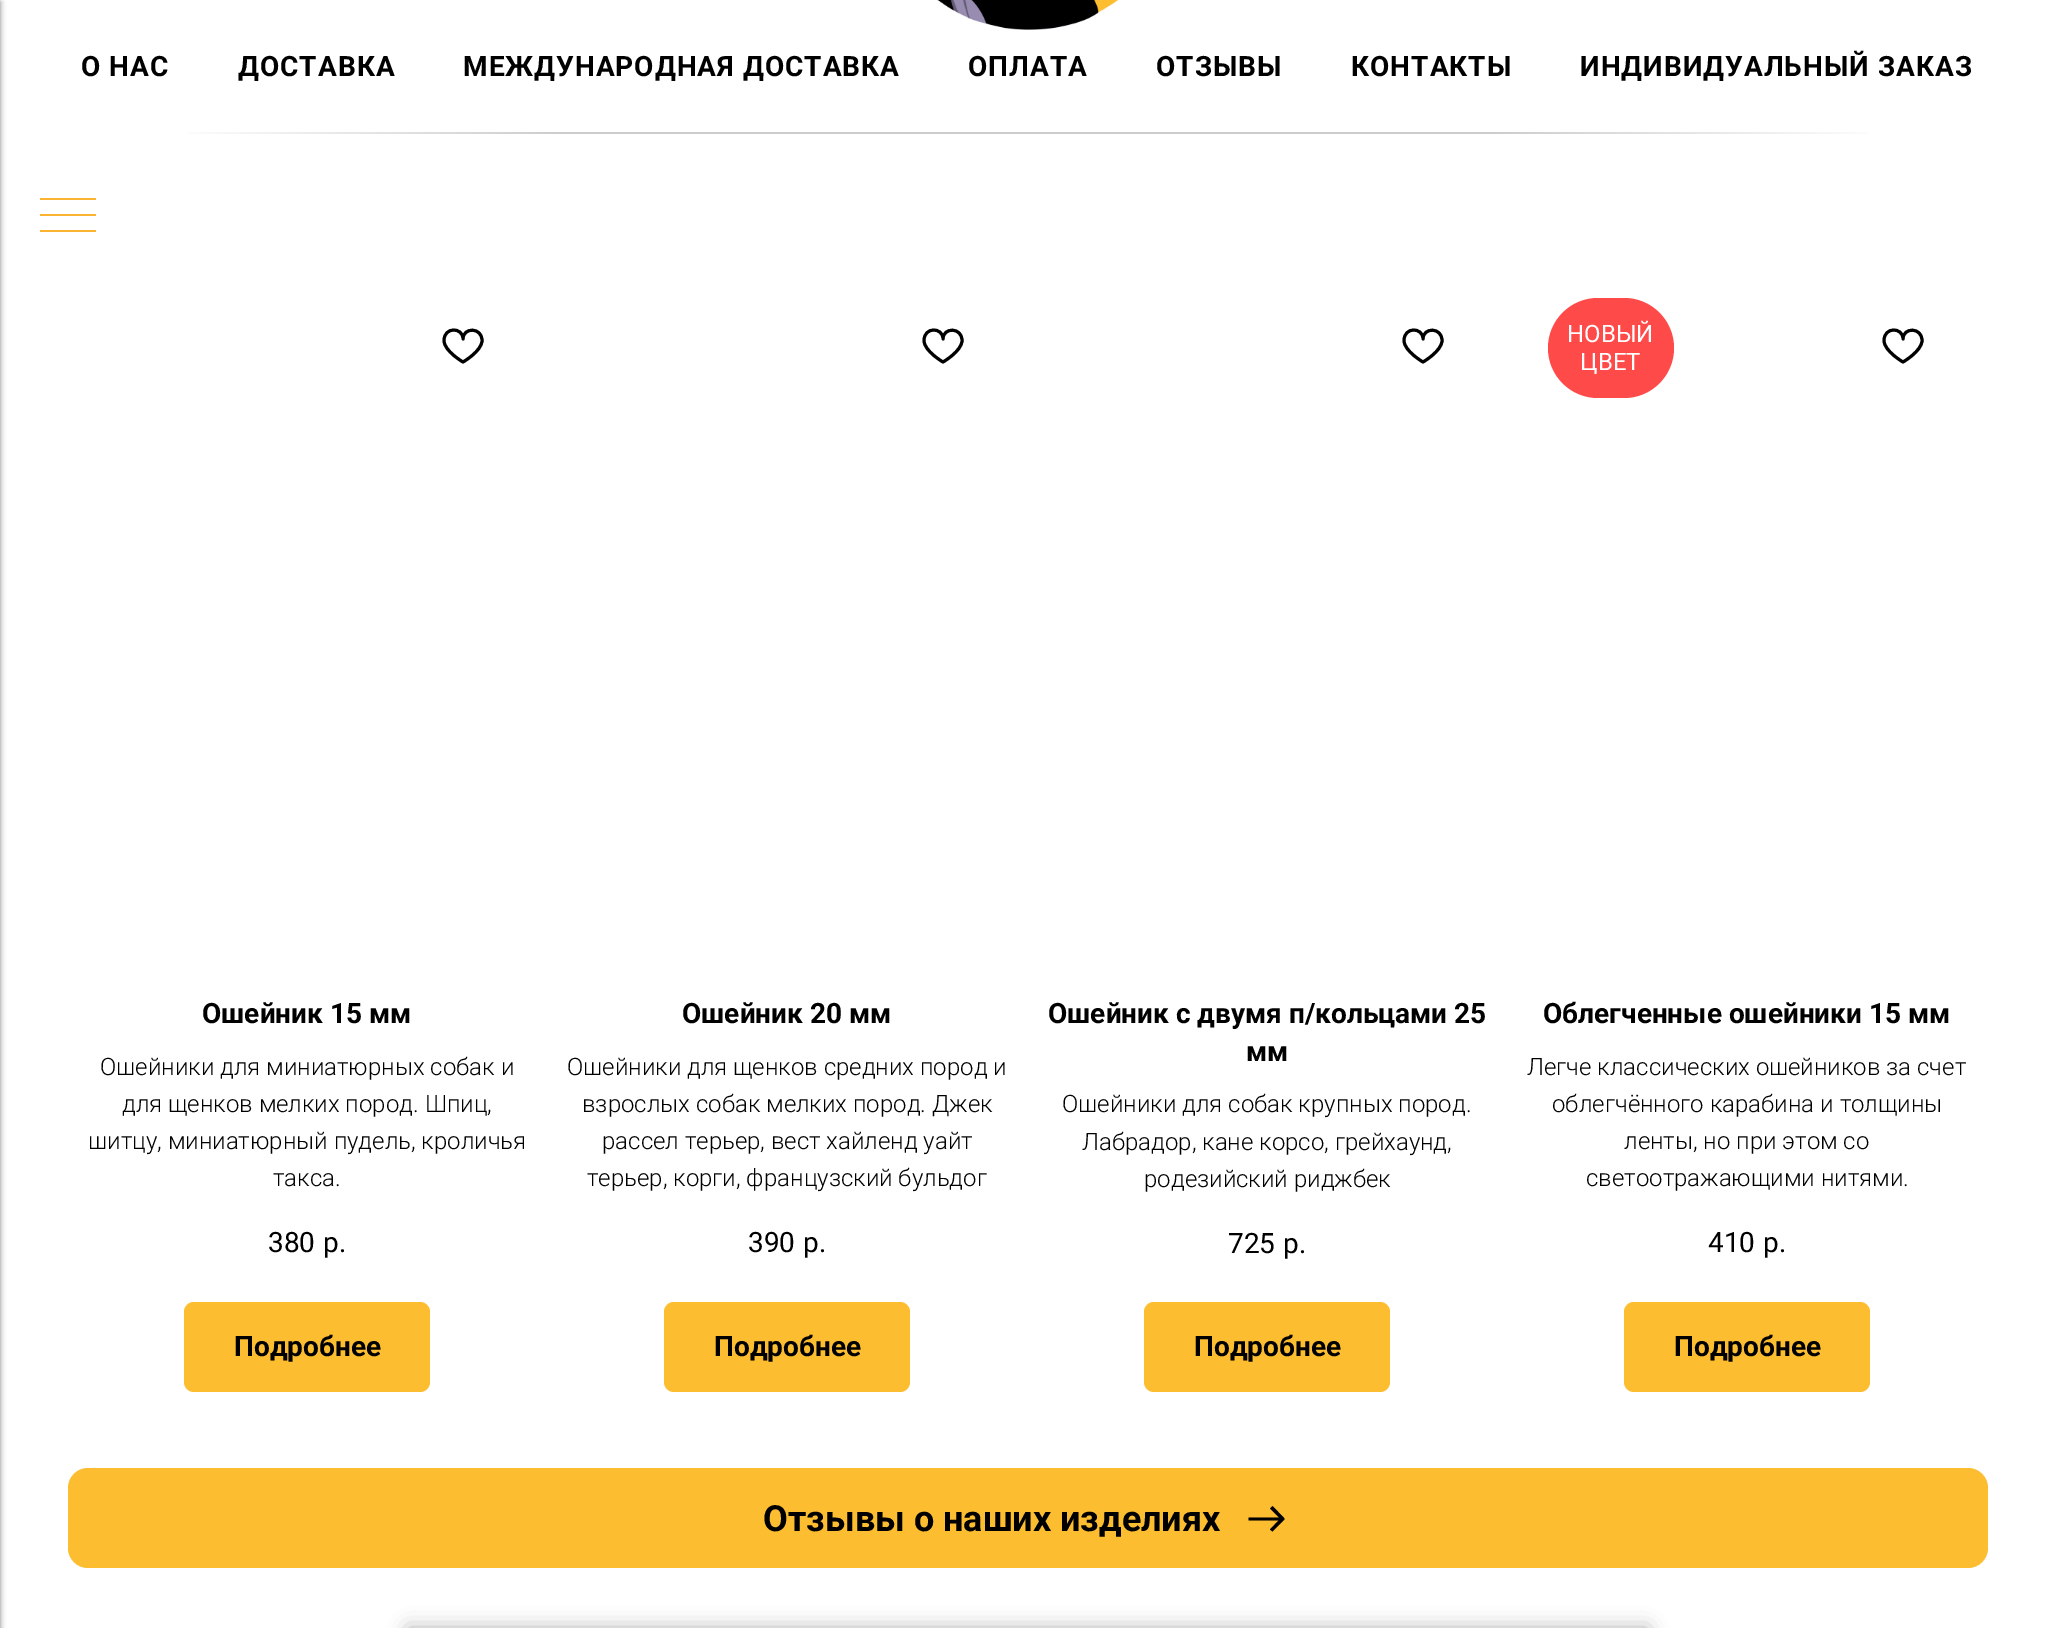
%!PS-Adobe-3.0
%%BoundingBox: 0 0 2054 1628
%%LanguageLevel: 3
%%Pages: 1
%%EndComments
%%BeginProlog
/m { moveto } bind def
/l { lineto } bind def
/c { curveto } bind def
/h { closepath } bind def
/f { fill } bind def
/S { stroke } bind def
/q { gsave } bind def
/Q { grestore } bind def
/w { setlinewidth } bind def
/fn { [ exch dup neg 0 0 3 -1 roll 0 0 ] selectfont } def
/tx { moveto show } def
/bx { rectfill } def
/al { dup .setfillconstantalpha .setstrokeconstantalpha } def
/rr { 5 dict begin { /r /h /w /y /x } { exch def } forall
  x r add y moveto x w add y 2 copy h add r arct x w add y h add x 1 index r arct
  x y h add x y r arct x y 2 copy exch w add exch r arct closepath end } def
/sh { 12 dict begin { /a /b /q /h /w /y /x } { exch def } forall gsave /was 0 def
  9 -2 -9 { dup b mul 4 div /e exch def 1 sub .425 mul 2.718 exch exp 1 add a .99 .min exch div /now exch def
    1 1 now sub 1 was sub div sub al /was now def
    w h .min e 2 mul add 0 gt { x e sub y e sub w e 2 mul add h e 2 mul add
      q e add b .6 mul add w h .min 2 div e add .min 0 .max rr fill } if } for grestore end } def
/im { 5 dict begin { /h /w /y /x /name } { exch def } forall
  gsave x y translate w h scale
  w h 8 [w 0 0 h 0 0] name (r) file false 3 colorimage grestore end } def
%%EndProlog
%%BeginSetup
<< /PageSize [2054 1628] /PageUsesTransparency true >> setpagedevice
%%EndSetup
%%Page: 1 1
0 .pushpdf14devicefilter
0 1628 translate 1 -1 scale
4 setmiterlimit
1 setgray
0 0 2054 1628 bx
0 setgray
-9 2 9 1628 0 3 0.5 sh
0.98 0.706 0.196 setrgbcolor
40 198 56 2 bx
40 214 56 2 bx
40 230 56 2 bx
(image0.raw) 937 0 182 30 im
/Roboto-Bold 28 fn
0 setgray
81 76 m 1 0 (О НАС) ashow
238 76 m 1 0 (ДОСТАВКА) ashow
463 76 m 1 0 (МЕЖДУНАРОДНАЯ ДОСТАВКА) ashow
968 76 m 1 0 (ОПЛАТА) ashow
1156 76 m 1 0 (ОТЗЫВЫ) ashow
1351 76 m 1 0 (КОНТАКТЫ) ashow
1580 76 m 1 0 (ИНДИВИДУАЛЬНЫЙ ЗАКАЗ) ashow
q 188 132 m 568 132 l 568 134 l 188 134 l h clip newpath
<< /ShadingType 2 /ColorSpace /DeviceRGB /Coords [568 133 168 133] /Extend [true true] /Function << /FunctionType 2 /Domain [0 1] /C0 [0.8 0.8 0.8] /C1 [1 1 1] /N 1 >> >> shfill Q
0.8 setgray
568 132 920 2 bx
q 1488 132 m 1868 132 l 1868 134 l 1488 134 l h clip newpath
<< /ShadingType 2 /ColorSpace /DeviceRGB /Coords [1488 133 1888 133] /Extend [true true] /Function << /FunctionType 2 /Domain [0 1] /C0 [0.8 0.8 0.8] /C1 [1 1 1] /N 1 >> >> shfill Q
0 setgray
3 w
1 setlinejoin
482 340.5 m 482 351 463 362 463 362 c 463 362 444 351 444 340.5 c 444 326.5 463 327 463 339 c 463 327 482 327 482 340.5 c h S
(Ошейник 15 мм) 202 1023 tx
/Roboto-Light 24 fn
(Ошейники для миниатюрных собак и) 100 1075 tx
(для щенков мелких пород. Шпиц,) 122 1112 tx
(шитцу, миниатюрный пудель, кроличья) 88 1149 tx
(такса.) 273 1186 tx
/Roboto-Regular 28 fn
(380) 268 1252 tx
(р.) 323 1252 tx
0.988 0.741 0.188 setrgbcolor
184 1302 246 90 10 rr f
/Roboto-Bold 28 fn
0 setgray
(Подробнее) 234 1356 tx
962 340.5 m 962 351 943 362 943 362 c 943 362 924 351 924 340.5 c 924 326.5 943 327 943 339 c 943 327 962 327 962 340.5 c h S
(Ошейник 20 мм) 682 1023 tx
/Roboto-Light 24 fn
(Ошейники для щенков средних пород и) 567 1075 tx
(взрослых собак мелких пород. Джек) 582 1112 tx
(рассел терьер, вест хайленд уайт) 602 1149 tx
(терьер, корги, французский бульдог) 587 1186 tx
/Roboto-Regular 28 fn
(390) 748 1252 tx
(р.) 803 1252 tx
0.988 0.741 0.188 setrgbcolor
664 1302 246 90 10 rr f
/Roboto-Bold 28 fn
0 setgray
(Подробнее) 714 1356 tx
1442 340.5 m 1442 351 1423 362 1423 362 c 1423 362 1404 351 1404 340.5 c 1404 326.5 1423 327 1423 339 c 1423 327 1442 327 1442 340.5 c h S
(Ошейник с двумя п/кольцами 25) 1048 1023 tx
(мм) 1246 1061 tx
/Roboto-Light 24 fn
(Ошейники для собак крупных пород.) 1062 1112 tx
(Лабрадор, кане корсо, грейхаунд,) 1082 1150 tx
(родезийский риджбек) 1144 1187 tx
/Roboto-Regular 28 fn
(725) 1228 1253 tx
(р.) 1283 1253 tx
0.988 0.741 0.188 setrgbcolor
1144 1302 246 90 10 rr f
/Roboto-Bold 28 fn
0 setgray
(Подробнее) 1194 1356 tx
1 0.29 0.29 setrgbcolor
1548 298 126 100 50 rr f
/Roboto-Regular 24 fn
1 setgray
(НОВЫЙ) 1567 342 tx
(ЦВЕТ) 1580 370 tx
0 setgray
1922 340.5 m 1922 351 1903 362 1903 362 c 1903 362 1884 351 1884 340.5 c 1884 326.5 1903 327 1903 339 c 1903 327 1922 327 1922 340.5 c h S
/Roboto-Bold 28 fn
(Облегченные ошейники 15 мм) 1543 1023 tx
/Roboto-Light 24 fn
(Легче классических ошейников за счет) 1527 1075 tx
(облегчённого карабина и толщины) 1552 1112 tx
(ленты, но при этом со) 1624 1149 tx
(светоотражающими нитями.) 1586 1186 tx
/Roboto-Regular 28 fn
(410) 1708 1252 tx
(р.) 1763 1252 tx
0.988 0.741 0.188 setrgbcolor
1624 1302 246 90 10 rr f
/Roboto-Bold 28 fn
0 setgray
(Подробнее) 1674 1356 tx
0.988 0.741 0.188 setrgbcolor
68 1468 1920 100 20 rr f
/Roboto-Bold 36 fn
0 setgray
(Отзывы о наших изделиях) 763 1531 tx
1284 1518 m 1284.5 1518.5 1284.5 1519.5 1284 1520 c 1272.5 1531.5 l 1270 1529.5 l 1278.5 1520.5 l 1248.5 1520.5 l 1248.5 1517.5 l 1279 1517.5 l 1270 1508.5 l 1272.5 1506 l h f
408 1628 1240 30 0 10 0.3 sh
.poppdf14devicefilter showpage
%%EOF
